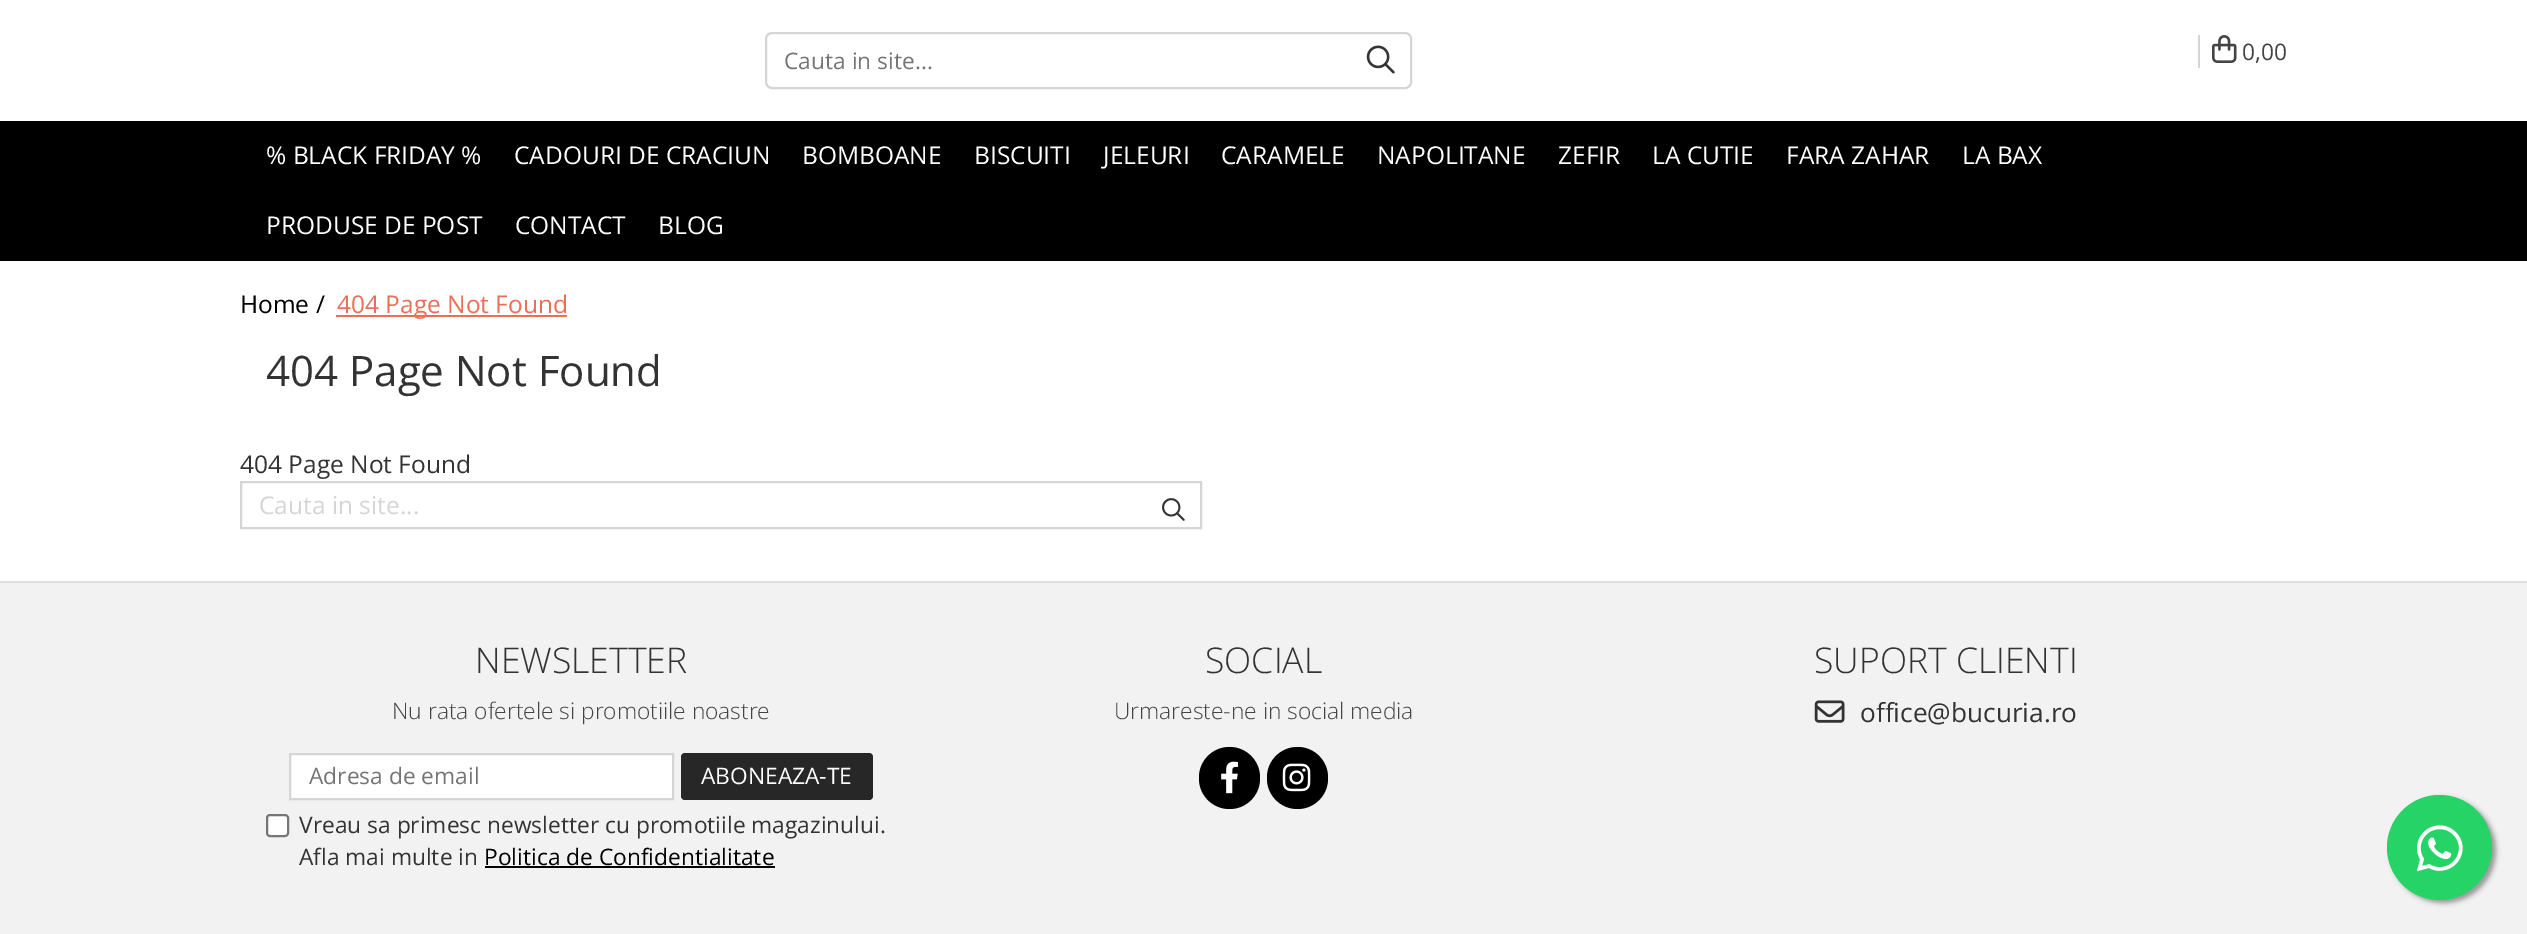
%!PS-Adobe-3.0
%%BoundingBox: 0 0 2527 934
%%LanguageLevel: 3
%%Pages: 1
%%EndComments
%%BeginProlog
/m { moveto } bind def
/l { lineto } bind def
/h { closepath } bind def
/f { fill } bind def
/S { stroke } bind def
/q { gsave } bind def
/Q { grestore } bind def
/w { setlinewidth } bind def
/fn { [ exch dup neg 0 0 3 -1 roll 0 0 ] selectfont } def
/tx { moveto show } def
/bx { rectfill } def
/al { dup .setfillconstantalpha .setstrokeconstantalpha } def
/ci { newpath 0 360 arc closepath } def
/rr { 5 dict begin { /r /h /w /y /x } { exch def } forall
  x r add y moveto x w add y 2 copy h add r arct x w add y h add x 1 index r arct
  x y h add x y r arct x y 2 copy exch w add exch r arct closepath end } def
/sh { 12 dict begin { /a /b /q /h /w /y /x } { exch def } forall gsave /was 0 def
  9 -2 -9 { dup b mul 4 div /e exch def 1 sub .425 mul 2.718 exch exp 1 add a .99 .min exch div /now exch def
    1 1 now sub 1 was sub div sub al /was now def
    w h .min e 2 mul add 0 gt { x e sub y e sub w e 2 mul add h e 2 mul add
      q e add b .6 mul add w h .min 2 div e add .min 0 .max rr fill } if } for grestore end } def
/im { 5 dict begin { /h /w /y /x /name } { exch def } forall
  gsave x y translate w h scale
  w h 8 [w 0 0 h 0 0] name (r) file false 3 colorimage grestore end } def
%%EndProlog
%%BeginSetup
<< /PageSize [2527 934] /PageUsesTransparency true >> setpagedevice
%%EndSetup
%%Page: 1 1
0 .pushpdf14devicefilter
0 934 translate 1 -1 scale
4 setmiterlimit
1 setgray
0 0 2527 934 bx
0.835 setgray
2 w
766 33 645 55 6 rr S
/OpenSans-Regular 22.75 fn
0.459 setgray
(Cauta in site...) 784 69 tx
(image0.raw) 1366 45 29 29 im
0.835 setgray
2198 35 2 33 bx
(image1.raw) 2212 35 25 28 im
0.267 setgray
(0,00) 2242 60 tx
0 setgray
0 121 2527 140 bx
/OpenSans-Regular 24.5 fn
1 setgray
(% BLACK FRIDAY %) 266 164 tx
(CADOURI DE CRACIUN) 514 164 tx
(BOMBOANE) 802 164 tx
(BISCUITI) 974 164 tx
(JELEURI) 1103 164 tx
(CARAMELE) 1221 164 tx
(NAPOLITANE) 1377 164 tx
(ZEFIR) 1558 164 tx
(LA CUTIE) 1652 164 tx
(FARA ZAHAR) 1786 164 tx
(LA BAX) 1962 164 tx
(PRODUSE DE POST) 266 234 tx
(CONTACT) 515 234 tx
(BLOG) 658 234 tx
0 setgray
(Home /) 240 313 tx
0.914 0.435 0.337 setrgbcolor
336 315 231 2 bx
(404 Page Not Found) 337 313 tx
/OpenSans-Regular 42 fn
0.2 setgray
(404 Page Not Found) 266 386 tx
/OpenSans-Regular 24.5 fn
(404 Page Not Found) 240 473 tx
0.835 setgray
241 482 960 46 rectstroke
(Cauta in site...) 259 514 tx
(image2.raw) 1162 498 23 23 im
0.949 setgray
0 583 2527 351 bx
0.875 setgray
0 581 2527 2 bx
/OpenSans-Light 35.5 fn
0.2 setgray
(NEWSLETTER) 475 673 tx
/OpenSans-Light 22.75 fn
0.267 setgray
(Nu rata ofertele si promotiile noastre) 392 719 tx
1 setgray
290 754 m 673 754 l 673 799 l 290 799 l h q f Q
0.835 setgray
S
/OpenSans-Regular 22.75 fn
0.459 setgray
(Adresa de email) 309 784 tx
0.153 setgray
681 753 192 47 4 rr f
1 setgray
(ABONEAZA-TE) 701 784 tx
267 815 21 21 3 rr q f Q
0.463 setgray
S
0.2 setgray
(Vreau sa primesc newsletter cu promotiile magazinului.) 299 833 tx
(Afla mai multe in) 299 865 tx
0 setgray
(Politica de Confidentialitate) 484 865 tx
485 866 290 2 bx
/OpenSans-Light 35.5 fn
0.2 setgray
(SOCIAL) 1205 673 tx
/OpenSans-Light 22.75 fn
0.267 setgray
(Urmareste-ne in social media) 1114 719 tx
0 setgray
1199 747 61 62 30.5 rr f
(image3.raw) 1221 761 18 33 im
1267 747 61 62 30.5 rr f
(image4.raw) 1282 763 29 29 im
/OpenSans-Light 35.5 fn
0.2 setgray
(SUPORT CLIENTI) 1814 673 tx
(image5.raw) 1814 700 31 23 im
/OpenSans-Regular 26.25 fn
(office@bucuria.ro) 1860 722 tx
0.6 setgray
2391 798 105 105 52.5 2.5 1 sh
0.145 0.827 0.4 setrgbcolor
2439.5 847.5 52.5 ci f
(image6.raw) 2416 825 47 47 im
.poppdf14devicefilter showpage
%%EOF
